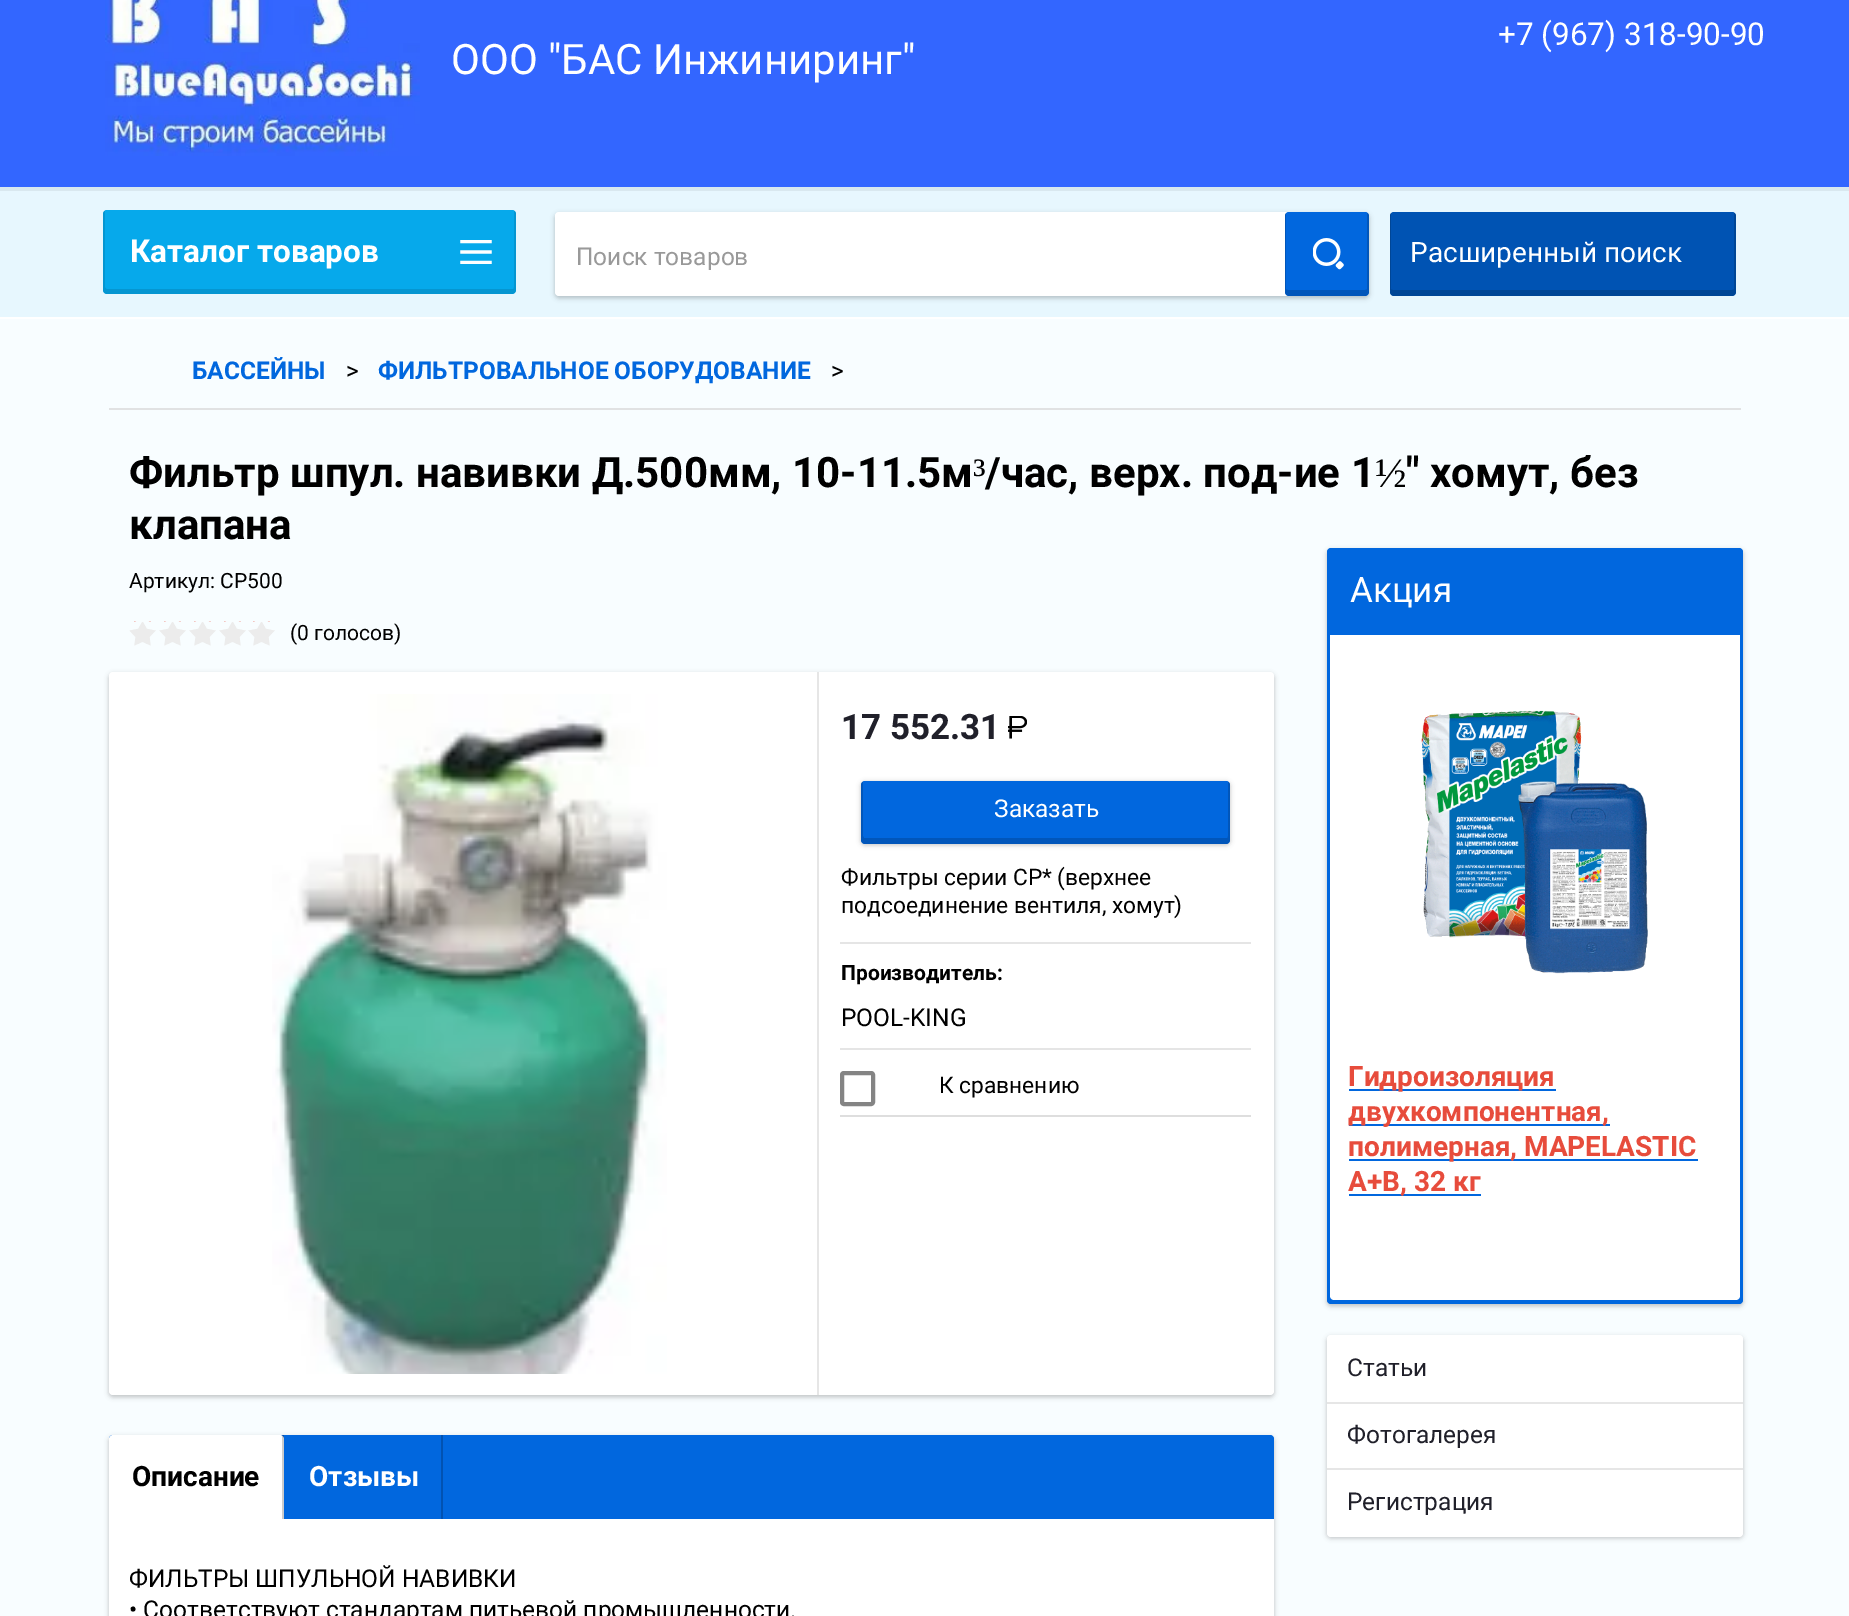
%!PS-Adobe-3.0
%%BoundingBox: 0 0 1849 1616
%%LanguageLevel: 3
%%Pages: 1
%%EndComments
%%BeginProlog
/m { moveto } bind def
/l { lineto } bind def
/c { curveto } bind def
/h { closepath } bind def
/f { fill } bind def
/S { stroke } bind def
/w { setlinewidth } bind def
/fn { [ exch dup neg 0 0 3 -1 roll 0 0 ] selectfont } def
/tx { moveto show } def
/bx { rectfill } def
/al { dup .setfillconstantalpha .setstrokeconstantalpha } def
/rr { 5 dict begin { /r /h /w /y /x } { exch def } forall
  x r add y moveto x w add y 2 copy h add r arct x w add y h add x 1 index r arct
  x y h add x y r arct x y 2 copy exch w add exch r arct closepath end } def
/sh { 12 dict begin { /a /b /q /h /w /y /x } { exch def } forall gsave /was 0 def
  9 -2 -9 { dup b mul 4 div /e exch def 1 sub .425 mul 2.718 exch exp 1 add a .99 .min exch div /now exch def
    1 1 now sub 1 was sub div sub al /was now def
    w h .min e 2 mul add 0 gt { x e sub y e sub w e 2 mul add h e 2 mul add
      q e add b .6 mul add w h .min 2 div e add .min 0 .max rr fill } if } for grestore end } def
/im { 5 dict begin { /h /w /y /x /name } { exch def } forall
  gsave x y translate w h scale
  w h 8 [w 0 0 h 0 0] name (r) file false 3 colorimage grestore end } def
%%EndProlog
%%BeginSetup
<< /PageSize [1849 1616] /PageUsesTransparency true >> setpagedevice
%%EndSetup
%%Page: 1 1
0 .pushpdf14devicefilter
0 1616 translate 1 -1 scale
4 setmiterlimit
0.973 0.992 1 setrgbcolor
0 0 1849 1616 bx
0.2 0.4 1 setrgbcolor
0 0 1849 187 bx
/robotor-Regular 31.5 fn
1 setgray
(+7 \(967\) 318-90-90) 1498 45 tx
(image0.raw) 105 0 315 156 im
/robotor-Regular 42 fn
(ООО "БАС Инжиниринг") 451 74 tx
0 317 m 0 319 l 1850 319 l 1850 189 l 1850 317 l h f
0.906 0.969 0.996 setrgbcolor
0 191 1849 126 bx
0.851 0.91 0.937 setrgbcolor
0 187 1849 4 bx
0.024 0.663 0.922 setrgbcolor
103 210 413 84 4 rr f
0.11 al
0 setgray
105 211 m 104 211 103 213 103 214 c 103 290 l 103 292 105 294 107 294 c 512 294 l 514 294 516 292 516 290 c 516 214 l 516 213 515 211 514 211 c 514 287 l 514 288 514 289 513 289 c 107 289 l 106 289 105 288 105 287 c h f
/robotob-Bold 31.5 fn
1 al
1 setgray
(Каталог товаров) 130 262 tx
(image1.raw) 460 240 32 24 im
0 setgray
1327 550 416 756 4 2.5 0.24 sh
0.004 0.404 0.871 setrgbcolor
1327 548 416 756 4 rr f
/robotor-Regular 35 fn
1 setgray
(Акция) 1350 602 tx
1330 635 m 1740 635 l 1740 1296 l 1740 1298 1738 1300 1736 1300 c 1334 1300 l 1332 1300 1330 1298 1330 1296 c h f
(image2.raw) 1421 710 227 264 im
0.004 0.404 0.871 setrgbcolor
1349 1089 207 2 bx
/robotob-Bold 28 fn
0.906 0.298 0.235 setrgbcolor
(Гидроизоляция) 1348 1086 tx
0.004 0.404 0.871 setrgbcolor
1349 1124 261 2 bx
0.906 0.298 0.235 setrgbcolor
(двухкомпонентная,) 1348 1121 tx
0.004 0.404 0.871 setrgbcolor
1349 1159 349 2 bx
0.906 0.298 0.235 setrgbcolor
(полимерная, MAPELASTIC) 1348 1156 tx
0.004 0.404 0.871 setrgbcolor
1349 1194 132 2 bx
0.906 0.298 0.235 setrgbcolor
(А+B, 32 кг) 1348 1191 tx
0 setgray
1327 1337 416 201 4 2.5 0.24 sh
1 setgray
1327 1335 416 202 4 rr f
/robotor-Regular 24.5 fn
0.125 0.125 0.165 setrgbcolor
(Статьи) 1347 1376 tx
0.902 setgray
1327 1402 416 2 bx
0.125 0.125 0.165 setrgbcolor
(Фотогалерея) 1347 1443 tx
0.902 setgray
1327 1468 416 2 bx
0.125 0.125 0.165 setrgbcolor
(Регистрация) 1347 1510 tx
0 setgray
555 214 814 84 4 2.5 0.24 sh
1 setgray
555 212 814 84 4 rr f
0.6 setgray
(Поиск товаров) 576 265 tx
0.004 0.404 0.871 setrgbcolor
1285 212 84 84 4 rr f
0.16 al
0 setgray
1286 213 m 1285 214 1285 215 1285 216 c 1285 292 l 1285 294 1287 296 1289 296 c 1365 296 l 1367 296 1369 294 1369 292 c 1369 216 l 1369 215 1368 213 1367 213 c 1367 289 l 1367 290 1366 290 1365 290 c 1288 290 l 1287 290 1286 290 1286 289 c h f
1 al
(image3.raw) 1313 238 31 32 im
0 0.325 0.702 setrgbcolor
1390 212 346 84 4 rr f
0.16 al
0 setgray
1391 213 m 1390 214 1390 215 1390 216 c 1390 292 l 1390 294 1392 296 1394 296 c 1732 296 l 1734 296 1736 294 1736 292 c 1736 216 l 1736 215 1735 213 1734 213 c 1734 289 l 1734 290 1733 290 1732 290 c 1393 290 l 1392 290 1391 290 1391 289 c h f
/robotor-Regular 28 fn
1 al
1 setgray
(Расширенный поиск) 1410 262 tx
0.882 0.886 0.89 setrgbcolor
109 408 1632 2 bx
/robotob-Bold 24.5 fn
0.004 0.404 0.871 setrgbcolor
(БАССЕЙНЫ) 192 379 tx
/robotor-Regular 24.5 fn
0 setgray
(>) 346 379 tx
/robotob-Bold 24.5 fn
0.004 0.404 0.871 setrgbcolor
(ФИЛЬТРОВАЛЬНОЕ ОБОРУДОВАНИЕ) 378 379 tx
/robotor-Regular 24.5 fn
0 setgray
(>) 831 379 tx
/robotob-Bold 42 fn
(Фильтр шпул. навивки Д.500мм, 10-11.5м) 129 487 tx
/LiberationSerif-Regular 42 fn
(³) 973 487 tx
/robotob-Bold 42 fn
(/час, верх. под-ие 1) 985 487 tx
/LiberationSerif-Regular 42 fn
(½) 1375 487 tx
/robotob-Bold 42 fn
(" хомут, без) 1406 487 tx
(клапана) 129 539 tx
/robotor-Regular 21 fn
(Артикул: CP500) 129 588 tx
(image4.raw) 129 621 146 25 im
(\(0 голосов\)) 290 640 tx
109 674 1165 723 4 2.5 0.24 sh
1 setgray
109 672 1165 723 4 rr f
(image5.raw) 272 694 395 680 im
0.902 setgray
817 672 m 817 1395 l 1271 1395 l 819 1395 l 819 672 l h f
/robotob-Bold 35 fn
0.125 0.125 0.165 setrgbcolor
(17 552.31) 841 739 tx
(image6.raw) 1008 716 19 23 im
0 setgray
861 782 369 63 4 2.5 0.24 sh
0.004 0.404 0.871 setrgbcolor
861 781 369 63 4 rr f
0.16 al
0 setgray
863 782 m 862 782 861 784 861 785 c 861 840 l 861 842 863 844 865 844 c 1226 844 l 1228 844 1230 842 1230 840 c 1230 785 l 1230 784 1229 782 1228 782 c 1228 836 l 1228 837 1228 838 1227 838 c 864 838 l 863 836 l h f
/robotor-Regular 24.5 fn
1 al
1 setgray
(Заказать) 994 817 tx
/robotor-Regular 22.75 fn
0 setgray
(Фильтры серии СР* \(верхнее) 841 885 tx
(подсоединение вентиля, хомут\)) 841 913 tx
0.898 setgray
840 942 411 2 bx
840 1048 411 2 bx
/robotob-Bold 21 fn
0 setgray
(Производитель:) 841 980 tx
/robotor-Regular 24.5 fn
(POOL-KING) 841 1026 tx
0.871 setgray
840 1115 411 2 bx
0.518 setgray
4 w
842 1073 31 31 2 rr S
/robotor-Regular 22.75 fn
0 setgray
(К сравнению) 939 1093 tx
109 1437 1165 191 4 2.5 0.24 sh
0.004 0.404 0.871 setrgbcolor
109 1435 1165 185 4 rr f
1 setgray
113 1435 m 280 1435 l 282 1435 284 1437 284 1439 c 284 1519 l 109 1519 l 109 1439 l 109 1437 111 1435 113 1435 c h f
/robotob-Bold 28 fn
0 setgray
(Описание) 132 1486 tx
0.2 al
282 1435 2 84 bx
1 al
1 setgray
(Отзывы) 309 1486 tx
0.004 0.322 0.698 setrgbcolor
441 1435 2 84 bx
1 setgray
109 1519 1165 97 bx
/robotor-Regular 24.5 fn
0 setgray
(ФИЛЬТРЫ ШПУЛЬНОЙ НАВИВКИ) 129 1587 tx
(• Соответствуют стандартам питьевой промышленности.) 129 1618 tx
.poppdf14devicefilter showpage
%%EOF
